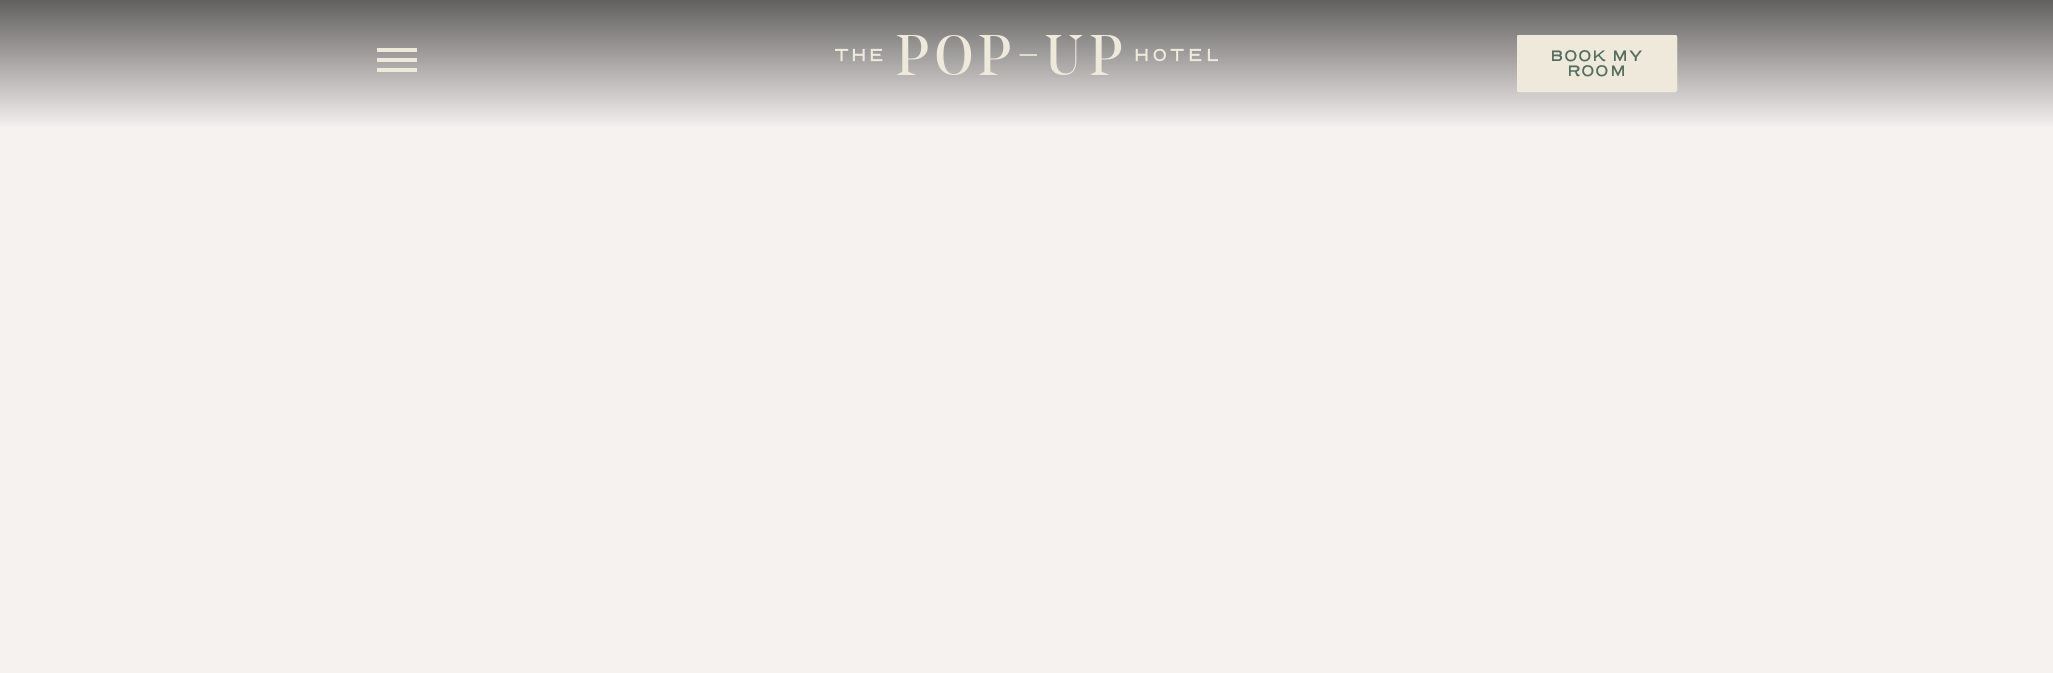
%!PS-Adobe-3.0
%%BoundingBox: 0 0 2053 673
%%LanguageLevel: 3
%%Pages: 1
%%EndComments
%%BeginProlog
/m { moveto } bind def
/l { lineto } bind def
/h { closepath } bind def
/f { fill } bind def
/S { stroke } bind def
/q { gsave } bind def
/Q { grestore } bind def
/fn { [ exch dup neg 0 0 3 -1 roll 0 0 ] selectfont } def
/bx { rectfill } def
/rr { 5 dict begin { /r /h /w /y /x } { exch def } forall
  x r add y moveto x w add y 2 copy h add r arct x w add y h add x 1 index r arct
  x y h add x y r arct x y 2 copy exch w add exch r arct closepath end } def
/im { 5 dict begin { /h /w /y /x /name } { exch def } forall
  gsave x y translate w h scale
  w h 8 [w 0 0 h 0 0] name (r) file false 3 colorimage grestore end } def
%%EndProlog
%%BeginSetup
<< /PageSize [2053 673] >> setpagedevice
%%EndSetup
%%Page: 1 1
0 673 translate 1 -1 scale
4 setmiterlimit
0.961 0.949 0.937 setrgbcolor
0 0 2053 673 bx
q 0 0 m 2053 0 l 2053 127 l 0 127 l h clip newpath
<< /ShadingType 2 /ColorSpace /DeviceRGB /Coords [1027 0 1027 128] /Extend [true true] /Function << /FunctionType 3 /Domain [0 1] /Functions [<< /FunctionType 2 /Domain [0 1] /C0 [0.384 0.376 0.376] /C1 [0.671 0.663 0.659] /N 1 >> << /FunctionType 2 /Domain [0 1] /C0 [0.671 0.663 0.659] /C1 [0.957 0.945 0.941] /N 1 >>] /Bounds [0.5] /Encode [0 1 0 1] >> >> shfill Q
0.933 0.914 0.859 setrgbcolor
377 48 40 4 bx
377 58 40 4 bx
377 68 40 4 bx
(image0.raw) 835 35 383 40 im
1517.5 35.5 159 56 1.5 rr q f Q
S
/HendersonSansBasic-SemiBold 15.25 fn
0.333 0.431 0.373 setrgbcolor
1550 61 m 0.5 0 (BOOK MY) ashow
1567 76 m 0.5 0 (ROOM) ashow
showpage
%%EOF
